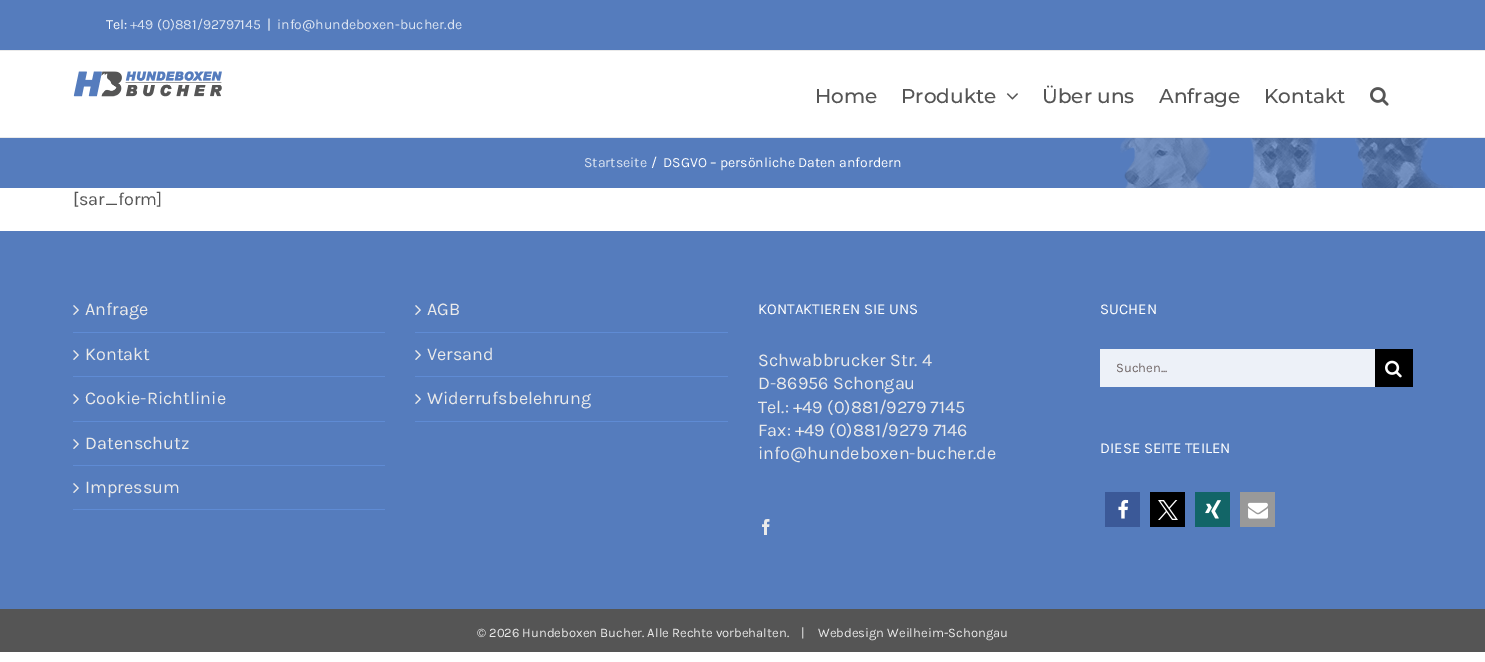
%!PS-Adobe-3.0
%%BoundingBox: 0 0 1485 662
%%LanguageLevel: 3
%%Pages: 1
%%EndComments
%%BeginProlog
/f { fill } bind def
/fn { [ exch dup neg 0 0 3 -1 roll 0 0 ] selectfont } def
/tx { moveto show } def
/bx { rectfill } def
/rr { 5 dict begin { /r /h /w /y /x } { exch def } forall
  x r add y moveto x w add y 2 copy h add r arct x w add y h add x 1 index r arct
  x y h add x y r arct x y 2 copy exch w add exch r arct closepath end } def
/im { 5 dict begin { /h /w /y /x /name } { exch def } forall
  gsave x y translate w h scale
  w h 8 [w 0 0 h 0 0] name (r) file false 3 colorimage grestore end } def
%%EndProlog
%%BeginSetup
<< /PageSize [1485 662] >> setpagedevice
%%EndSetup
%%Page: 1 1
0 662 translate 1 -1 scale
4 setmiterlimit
1 setgray
0 0 1485 662 bx
0.333 0.486 0.741 setrgbcolor
0 0 1485 50 bx
0.918 setgray
0 50 1485 1 bx
/Karla-Regular 14 fn
1 setgray
(Tel:) 106 29 tx
0.867 0.898 0.949 setrgbcolor
(+49 \(0\)881/92797145) 130 29 tx
1 setgray
(|) 267 29 tx
0.867 0.898 0.949 setrgbcolor
(info@hundeboxen-bucher.de) 277 29 tx
0.918 setgray
0 137 1485 1 bx
(image0.raw) 73 71 149 26 im
/Montserrat-Medium 20 fn
0.333 setgray
(Home) 815 103 tx
(Produkte) 901 103 tx
(image1.raw) 1006 93 12 7 im
(Über uns) 1042 103 tx
(Anfrage) 1159 103 tx
(Kontakt) 1264 103 tx
(image2.raw) 1370 87 19 19 im
0.333 0.486 0.741 setrgbcolor
0 138 1485 50 bx
(image3.raw) 1120 138 333 50 im
/Karla-Regular 14 fn
0.867 0.898 0.949 setrgbcolor
(Startseite) 584 167 tx
1 setgray
(/) 651 167 tx
(DSGVO – persönliche Daten anfordern) 663 167 tx
/Karla-Regular 18 fn
0.333 setgray
([sar_form]) 73 205 tx
0.333 0.486 0.741 setrgbcolor
0 231 1485 378 bx
0.373 0.545 0.831 setrgbcolor
73 332 312 1 bx
(image4.raw) 73 305 6 10 im
0.918 setgray
(Anfrage) 85 315 tx
0.373 0.545 0.831 setrgbcolor
73 376 312 1 bx
(image4.raw) 73 350 6 10 im
0.918 setgray
(Kontakt) 85 360 tx
0.373 0.545 0.831 setrgbcolor
73 421 312 1 bx
(image4.raw) 73 394 6 10 im
0.918 setgray
(Cookie-Richtlinie) 85 404 tx
0.373 0.545 0.831 setrgbcolor
73 465 312 1 bx
(image4.raw) 73 439 6 10 im
0.918 setgray
(Datenschutz) 85 449 tx
0.373 0.545 0.831 setrgbcolor
73 509 312 1 bx
(image4.raw) 73 483 6 10 im
0.918 setgray
(Impressum) 85 493 tx
0.373 0.545 0.831 setrgbcolor
415 332 313 1 bx
(image4.raw) 415 305 6 10 im
0.918 setgray
(AGB) 427 315 tx
0.373 0.545 0.831 setrgbcolor
415 376 313 1 bx
(image4.raw) 415 350 6 10 im
0.918 setgray
(Versand) 427 360 tx
0.373 0.545 0.831 setrgbcolor
415 421 313 1 bx
(image4.raw) 415 394 6 10 im
0.918 setgray
(Widerrufsbelehrung) 427 404 tx
/Karla-Regular 15 fn
1 setgray
(KONTAKTIEREN SIE UNS) 758 314 tx
/Karla-Regular 18 fn
0.918 setgray
(Schwabbrucker Str. 4) 758 366 tx
(D-86956 Schongau) 758 389 tx
(Tel.: +49 \(0\)881/9279 7145) 758 413 tx
(Fax: +49 \(0\)881/9279 7146) 758 436 tx
(info@hundeboxen-bucher.de) 758 459 tx
(image5.raw) 762 519 8 16 im
/Karla-Regular 15 fn
1 setgray
(SUCHEN) 1100 314 tx
0.929 0.945 0.973 setrgbcolor
1100 349 275 38 bx
/Karla-Regular 13 fn
0.439 0.4 0.4 setrgbcolor
(Suchen...) 1116 372 tx
0 setgray
1375 349 38 38 bx
(image6.raw) 1385 360 17 18 im
/Karla-Regular 15 fn
1 setgray
(DIESE SEITE TEILEN) 1100 453 tx
0.231 0.349 0.596 setrgbcolor
1105 492 35 35 0.5 rr f
(image7.raw) 1118 499 11 20 im
0 setgray
1150 492 35 35 0.5 rr f
(image8.raw) 1158 500 20 20 im
0.071 0.396 0.404 setrgbcolor
1195 492 35 35 0.5 rr f
(image9.raw) 1205 500 16 19 im
0.6 setgray
1240 492 35 35 0.5 rr f
(image10.raw) 1247 502 21 17 im
0.333 setgray
0 609 1485 43 bx
/Karla-Regular 13 fn
0.918 setgray
(© 2026 Hundeboxen Bucher. Alle Rechte vorbehalten.    |) 477 637 tx
(Webdesign Weilheim-Schongau) 818 637 tx
showpage
%%EOF
